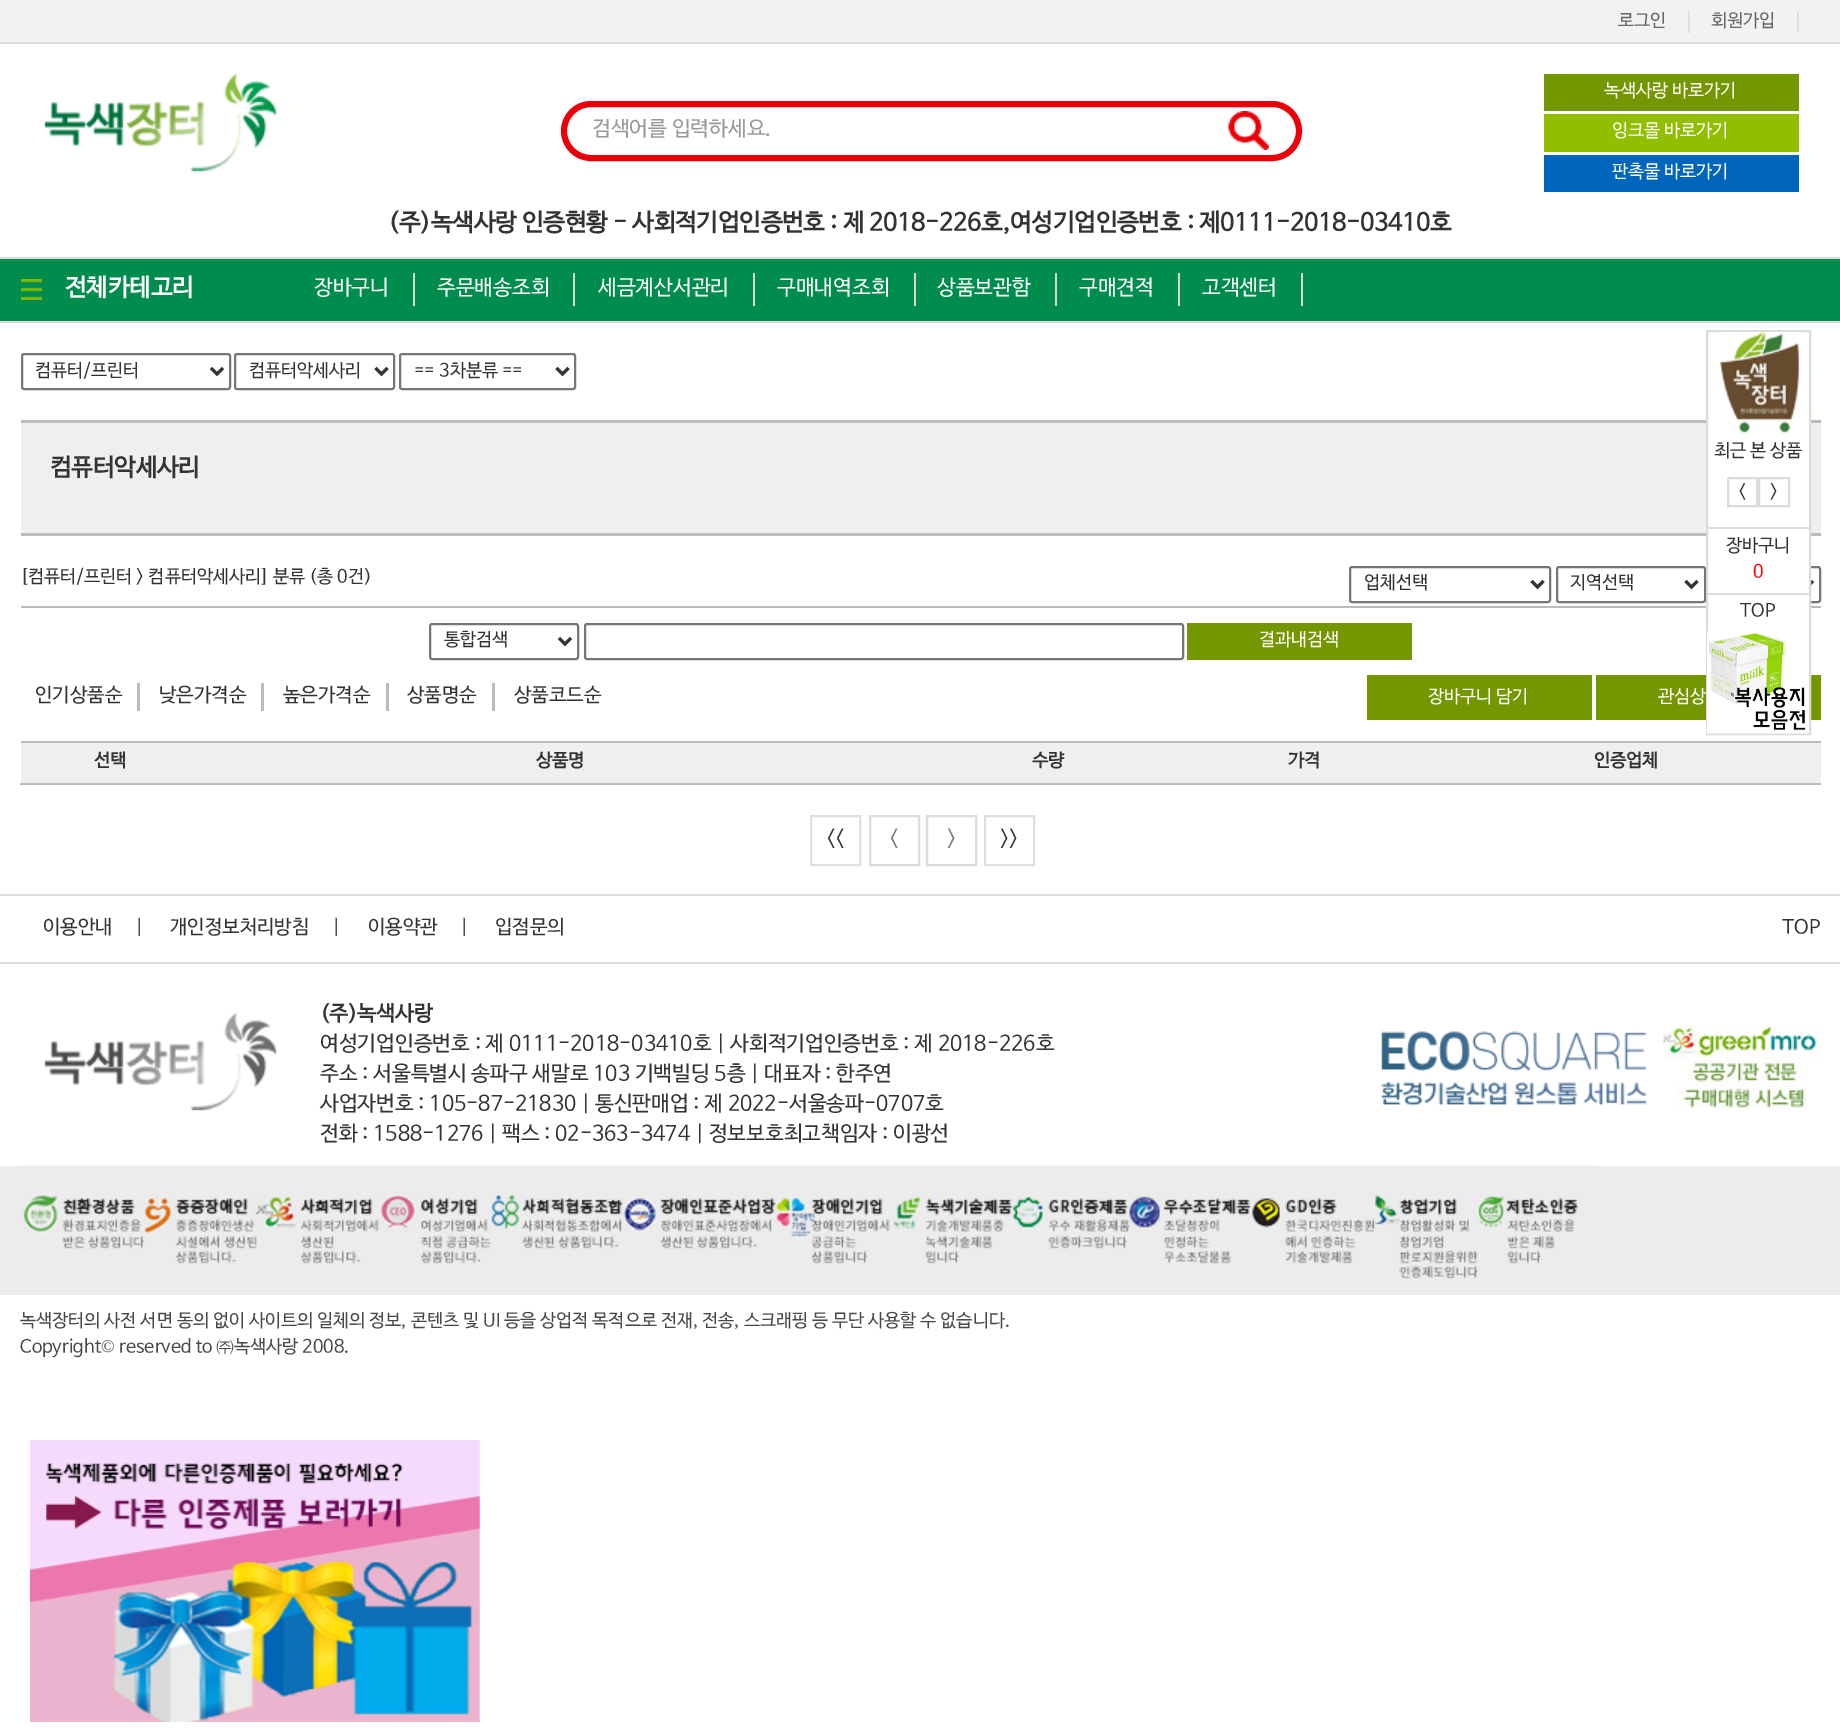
%!PS-Adobe-3.0
%%BoundingBox: 0 0 1840 1729
%%LanguageLevel: 3
%%Pages: 1
%%EndComments
%%BeginProlog
/m { moveto } bind def
/l { lineto } bind def
/S { stroke } bind def
/q { gsave } bind def
/Q { grestore } bind def
/w { setlinewidth } bind def
/fn { [ exch dup neg 0 0 3 -1 roll 0 0 ] selectfont } def
/tx { moveto show } def
/bx { rectfill } def
/rr { 5 dict begin { /r /h /w /y /x } { exch def } forall
  x r add y moveto x w add y 2 copy h add r arct x w add y h add x 1 index r arct
  x y h add x y r arct x y 2 copy exch w add exch r arct closepath end } def
/im { 5 dict begin { /h /w /y /x /name } { exch def } forall
  gsave x y translate w h scale
  w h 8 [w 0 0 h 0 0] name (r) file false 3 colorimage grestore end } def
%%EndProlog
%%BeginSetup
<< /PageSize [1840 1729] >> setpagedevice
%%EndSetup
%%Page: 1 1
0 1729 translate 1 -1 scale
4 setmiterlimit
1 setgray
0 0 1840 1729 bx
0.949 setgray
0 0 1840 42 bx
0.863 setgray
0 42 1840 2 bx
/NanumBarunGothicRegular-Regular 18 fn
0.4 setgray
(로그인) 1618 26 tx
0.878 setgray
1688 11 2 22 bx
0.4 setgray
(회원가입) 1711 26 tx
0.878 setgray
1797 11 2 22 bx
(image0.raw) 44 73 233 99 im
0.922 0 0.035 setrgbcolor
6 w
564 104 735 54 27 rr S
q
593 119 636 24 rectclip
/NanumBarunGothicRegular-Regular 21 fn
0.6 setgray
(검색어를 입력하세요.) 592 135 tx
Q
1 setgray
1279 108 1 1 bx
(image1.raw) 1228 111 41 39 im
0.455 0.588 0 setrgbcolor
1544 74 255 37 bx
1 setgray
(녹색사랑 바로가기) 1604 96 tx
0.569 0.749 0 setrgbcolor
1544 114 255 38 bx
1 setgray
(잉크몰 바로가기) 1612 136 tx
0 0.4 0.741 setrgbcolor
1544 155 255 37 bx
1 setgray
(판촉물 바로가기) 1612 177 tx
/NanumBarunGothicRegular-Bold 24 fn
0.2 setgray
(\(주\)녹색사랑 인증현황 - 사회적기업인증번호 : 제 2018-226호,여성기업인증번호 : 제0111-2018-03410호) 388 230 tx
0 0.549 0.298 setrgbcolor
0 259 1840 62 bx
0.863 setgray
0 257 1840 2 bx
0 321 1840 2 bx
(image2.raw) 21 279 21 21 im
1 setgray
(전체카테고리) 65 295 tx
/NanumBarunGothicRegular-Regular 21 fn
(장바구니) 314 294 tx
0.839 setgray
413 273 2 33 bx
1 setgray
(주문배송조회) 437 294 tx
0.839 setgray
573 273 2 33 bx
1 setgray
(세금계산서관리) 598 294 tx
0.839 setgray
753 273 2 33 bx
1 setgray
(구매내역조회) 777 294 tx
0.839 setgray
914 273 2 33 bx
1 setgray
(상품보관함) 937 294 tx
0.839 setgray
1055 273 2 33 bx
1 setgray
(구매견적) 1079 294 tx
0.839 setgray
1178 273 2 33 bx
1 setgray
(고객센터) 1202 294 tx
0.839 setgray
1301 273 2 33 bx
0.463 setgray
2 w
22 354 208 35 2 rr S
0.2 setgray
3 w
211 368 m 217 374 l 223 368 l S
/NanumBarunGothicRegular-Regular 18 fn
(컴퓨터/프린터) 35 376 tx
0.463 setgray
2 w
235 354 159 35 2 rr S
0.2 setgray
3 w
375.5 368 m 381.5 374 l 387.5 368 l S
(컴퓨터악세사리) 249 376 tx
0.463 setgray
2 w
400 354 175 35 2 rr S
0.2 setgray
3 w
556.5 368 m 562.5 374 l 568.5 368 l S
(== 3차분류 ==) 414 376 tx
0.937 setgray
21 423 1800 110 bx
0.733 setgray
21 420 1800 3 bx
21 533 1800 3 bx
/NanumBarunGothicRegular-Bold 24 fn
0.2 setgray
(컴퓨터악세사리) 50 475 tx
0.733 setgray
21 606 1800 2 bx
/NanumBarunGothicRegular-Regular 18 fn
0.2 setgray
([컴퓨터/프린터 > 컴퓨터악세사리] 분류 \(총 0건\)) 20 582 tx
0.463 setgray
2 w
1350 567 200 35 2 rr S
0.2 setgray
3 w
1531.5 581 m 1537.5 587 l 1543.5 581 l S
(업체선택) 1364 588 tx
0.463 setgray
2 w
1557 567 148 35 2 rr S
0.2 setgray
3 w
1685.5 581 m 1691.5 587 l 1697.5 581 l S
(지역선택) 1570 588 tx
0.463 setgray
2 w
1747 567 73 35 2 rr S
0.2 setgray
3 w
1801 581 m 1807 587 l 1813 581 l S
0.463 setgray
2 w
430 624 148 35 2 rr S
0.2 setgray
3 w
559 638 m 565 644 l 571 638 l S
(통합검색) 444 645 tx
0.463 setgray
2 w
585 624 598 35 2 rr S
0.455 0.588 0 setrgbcolor
1187 623 225 37 bx
1 setgray
(결과내검색) 1259 645 tx
0.733 setgray
137 683 3 28 bx
/NanumBarunGothicRegular-Regular 19.5 fn
0.2 setgray
(인기상품순) 35 701 tx
0.733 setgray
261 683 3 28 bx
0.2 setgray
(낮은가격순) 159 701 tx
0.733 setgray
386 683 3 28 bx
0.2 setgray
(높은가격순) 283 701 tx
0.733 setgray
492 683 3 28 bx
0.2 setgray
(상품명순) 407 701 tx
(상품코드순) 514 701 tx
0.455 0.588 0 setrgbcolor
1367 675 225 45 bx
/NanumBarunGothicRegular-Regular 18 fn
1 setgray
(장바구니 담기) 1428 702 tx
0.455 0.588 0 setrgbcolor
1596 675 225 45 bx
1 setgray
(관심상) 1658 702 tx
0.733 setgray
21 741 1800 2 bx
20 783 1801 2 bx
0.937 setgray
21 743 1800 40 bx
/NanumBarunGothicRegular-Bold 18 fn
0.2 setgray
(선택) 94 766 tx
(상품명) 536 766 tx
(수량) 1032 766 tx
(가격) 1288 766 tx
(인증업체) 1594 766 tx
0.875 setgray
811 816 49 49 rectstroke
/NanumBarunGothicRegular-Regular 21 fn
0.2 setgray
(<<) 826 845 tx
0.867 setgray
870 816 49 49 rectstroke
0.467 setgray
(<) 889 845 tx
0.867 setgray
927 816 49 49 rectstroke
0.467 setgray
(>) 947 845 tx
0.875 setgray
985 816 49 49 rectstroke
0.2 setgray
(>>) 1000 845 tx
1 setgray
1708 420 101 188 bx
0.863 setgray
1707 331 103 403 rectstroke
(image3.raw) 1719 331 81 102 im
1707 527 102 2 bx
/NanumBarunGothicRegular-Regular 18 fn
0.2 setgray
(최근 본 상품) 1714 456 tx
0.863 setgray
1728 478 29 28 rectstroke
0.2 setgray
(<) 1738 497 tx
0.863 setgray
1759 478 30 28 rectstroke
0.2 setgray
(>) 1770 497 tx
0.863 setgray
1707 593 102 2 bx
0.2 setgray
(장바구니) 1726 551 tx
1 0 0 setrgbcolor
(0) 1753 577 tx
0.2 setgray
(TOP) 1740 616 tx
(image4.raw) 1707 631 102 103 im
0.863 setgray
0 894 1840 2 bx
0 962 1840 2 bx
/NanumBarunGothicRegular-Regular 19.5 fn
0.2 setgray
(이용안내) 43 933 tx
0.314 setgray
(|) 135 933 tx
0.2 setgray
(개인정보처리방침) 170 933 tx
0.314 setgray
(|) 332 933 tx
0.2 setgray
(이용약관) 368 933 tx
0.314 setgray
(|) 460 933 tx
0.2 setgray
(입점문의) 495 933 tx
(TOP) 1782 933 tx
(image5.raw) 44 1012 233 99 im
/NanumBarunGothicRegular-Bold 21 fn
(\(주\)녹색사랑) 320 1020 tx
/NanumBarunGothicRegular-Regular 21 fn
(여성기업인증번호 : 제 0111-2018-03410호 | 사회적기업인증번호 : 제 2018-226호) 320 1050 tx
(주소 : 서울특별시 송파구 새말로 103 기백빌딩 5층 | 대표자 : 한주연) 320 1080 tx
(사업자번호 : 105-87-21830 | 통신판매업 : 제 2022-서울송파-0707호) 320 1110 tx
(전화 : 1588-1276 | 팩스 : 02-363-3474 | 정보보호최고책임자 : 이광선) 320 1140 tx
(image6.raw) 1381 1031 266 75 im
(image7.raw) 1663 1024 156 85 im
0.925 setgray
0 1166 1840 129 bx
(image8.raw) 21 1165 1575 114 im
/NanumBarunGothicRegular-Regular 18 fn
0.282 setgray
(녹색장터의 사전 서면 동의 없이 사이트의 일체의 정보, 콘텐츠 및 UI 등을 상업적 목적으로 전재, 전송, 스크래핑 등 무단 사용할 수 없습니다.) 20 1326 tx
(Copyright) 20 1352 tx
/LiberationSerif-Regular 18 fn
(©) 101 1352 tx
/NanumBarunGothicRegular-Regular 18 fn
(reserved to) 119 1352 tx
/WenQuanYiZenHei-Medium 18 fn
(㈜) 216 1352 tx
/NanumBarunGothicRegular-Regular 18 fn
(녹색사랑 2008.) 234 1352 tx
(image9.raw) 30 1440 450 282 im
showpage
%%EOF
